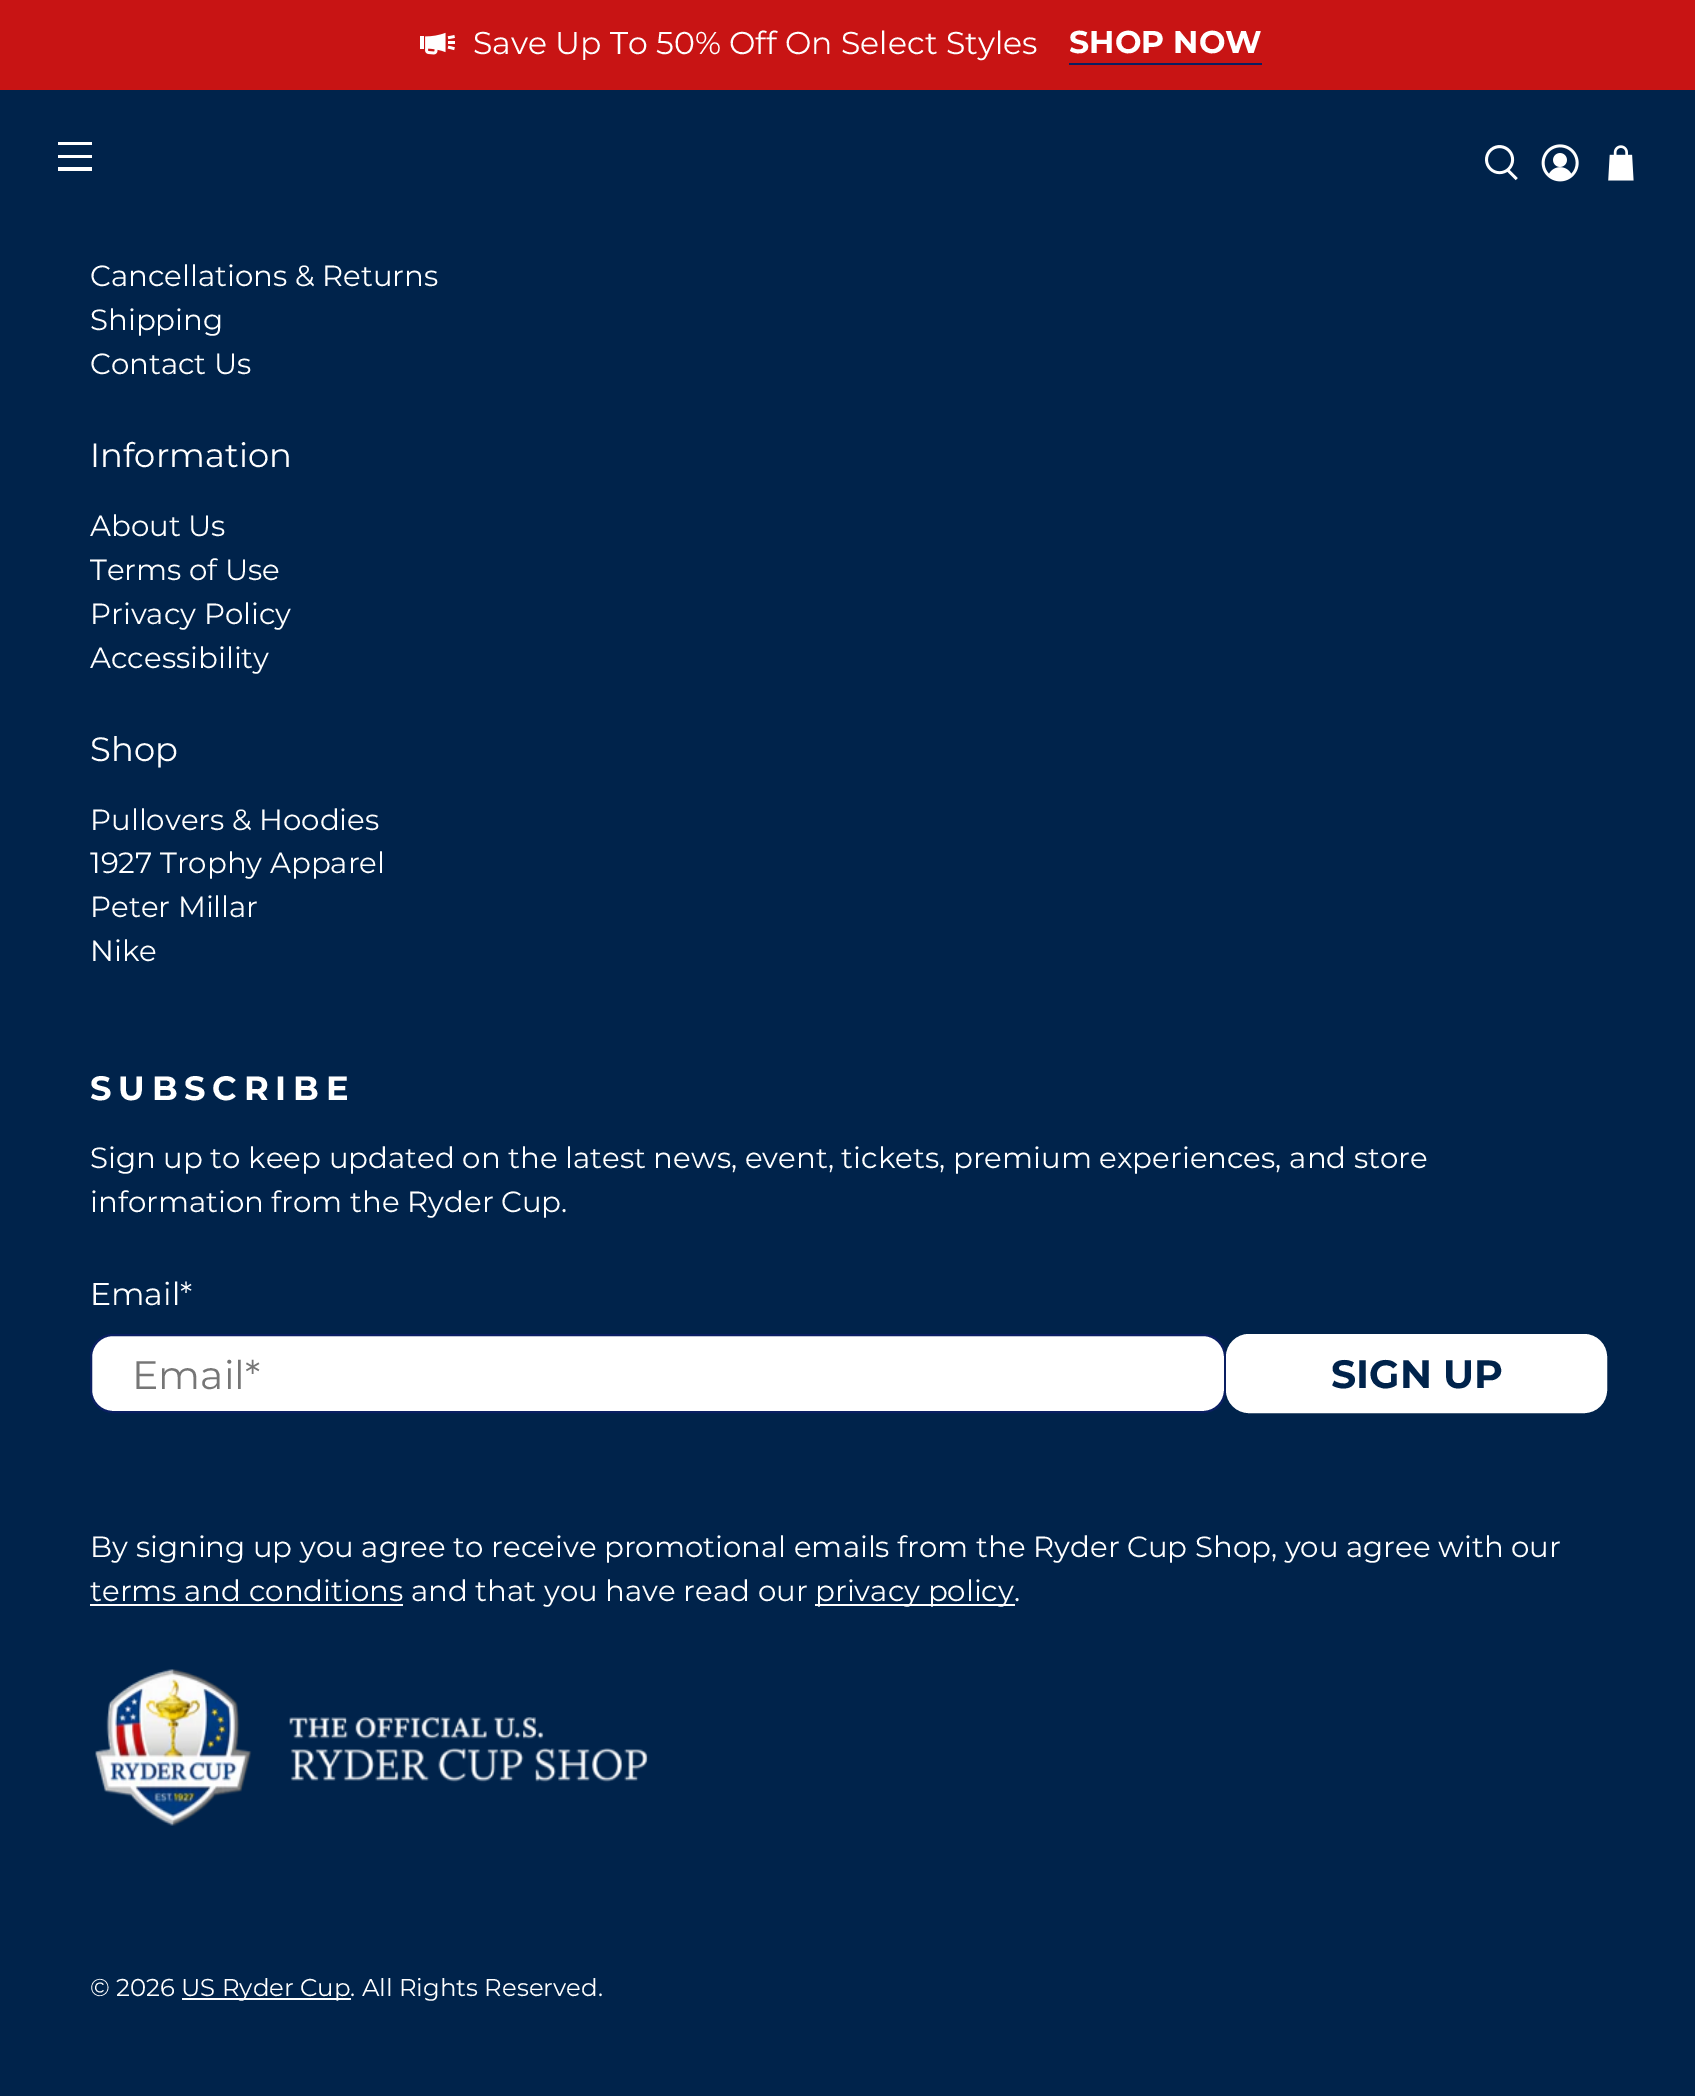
%!PS-Adobe-3.0
%%BoundingBox: 0 0 1695 2096
%%LanguageLevel: 3
%%Pages: 1
%%EndComments
%%BeginProlog
/m { moveto } bind def
/f { fill } bind def
/S { stroke } bind def
/q { gsave } bind def
/Q { grestore } bind def
/w { setlinewidth } bind def
/fn { [ exch dup neg 0 0 3 -1 roll 0 0 ] selectfont } def
/tx { moveto show } def
/bx { rectfill } def
/rr { 5 dict begin { /r /h /w /y /x } { exch def } forall
  x r add y moveto x w add y 2 copy h add r arct x w add y h add x 1 index r arct
  x y h add x y r arct x y 2 copy exch w add exch r arct closepath end } def
/im { 5 dict begin { /h /w /y /x /name } { exch def } forall
  gsave x y translate w h scale
  w h 8 [w 0 0 h 0 0] name (r) file false 3 colorimage grestore end } def
%%EndProlog
%%BeginSetup
<< /PageSize [1695 2096] >> setpagedevice
%%EndSetup
%%Page: 1 1
0 2096 translate 1 -1 scale
4 setmiterlimit
0 0.137 0.294 setrgbcolor
0 0 1695 2096 bx
0.784 0.078 0.078 setrgbcolor
0 0 1695 90 bx
(image0.raw) 420 32 35 23 im
/Montserrat-Regular 31.5 fn
1 setgray
(Save Up To 50% Off On Select Styles) 473 54 tx
0.039 0.122 0.384 setrgbcolor
1069 63 193 2 bx
/Montserrat-Bold 31.5 fn
1 setgray
(SHOP NOW) 1069 53 tx
58 142 34 3 bx
58 155 34 3 bx
58 167 34 4 bx
(image1.raw) 1485 145 33 36 im
(image2.raw) 1541 144 38 38 im
(image3.raw) 1608 145 26 36 im
/Montserrat-Regular 29.25 fn
(Cancellations & Returns) 90 286 tx
(Shipping) 90 330 tx
(Contact Us) 90 374 tx
/Montserrat-Regular 33.75 fn
(Information) 90 467 tx
/Montserrat-Regular 29.25 fn
(About Us) 90 536 tx
(Terms of Use) 90 580 tx
(Privacy Policy) 90 624 tx
(Accessibility) 90 668 tx
/Montserrat-Regular 33.75 fn
(Shop) 90 761 tx
/Montserrat-Regular 29.25 fn
(Pullovers & Hoodies) 90 830 tx
(1927 Trophy Apparel) 90 873 tx
(Peter Millar) 90 917 tx
(Nike) 90 961 tx
/Montserrat-Bold 33.75 fn
90 1100 m 6.75 0 (SUBSCRIBE) ashow
/Montserrat-Regular 29.25 fn
(Sign up to keep updated on the latest news, event, tickets, premium experiences, and store) 90 1168 tx
(information from the Ryder Cup.) 90 1212 tx
/Montserrat-Regular 31.5 fn
(Email*) 90 1305 tx
91 1335 1134 77 22 rr q f Q
0.039 0.122 0.384 setrgbcolor
2 w
S
/Montserrat-Regular 39.5 fn
0.463 setgray
(Email*) 132 1389 tx
1 setgray
1227 1335 379 77 22 rr q f Q
S
/Montserrat-Bold 39.5 fn
0 0.137 0.294 setrgbcolor
(SIGN UP) 1331 1388 tx
/Montserrat-Regular 29.25 fn
1 setgray
(By signing up you agree to receive promotional emails from the Ryder Cup Shop, you agree with our) 90 1557 tx
90 1604 313 2 bx
(terms and conditions and that you have read our) 90 1601 tx
815 1604 200 2 bx
(privacy policy.) 815 1601 tx
(image4.raw) 95 1669 553 157 im
/Montserrat-Regular 24.4 fn
(© 2026) 90 1996 tx
182 1998 169 2 bx
(US Ryder Cup. All Rights Reserved.) 181 1996 tx
showpage
%%EOF
